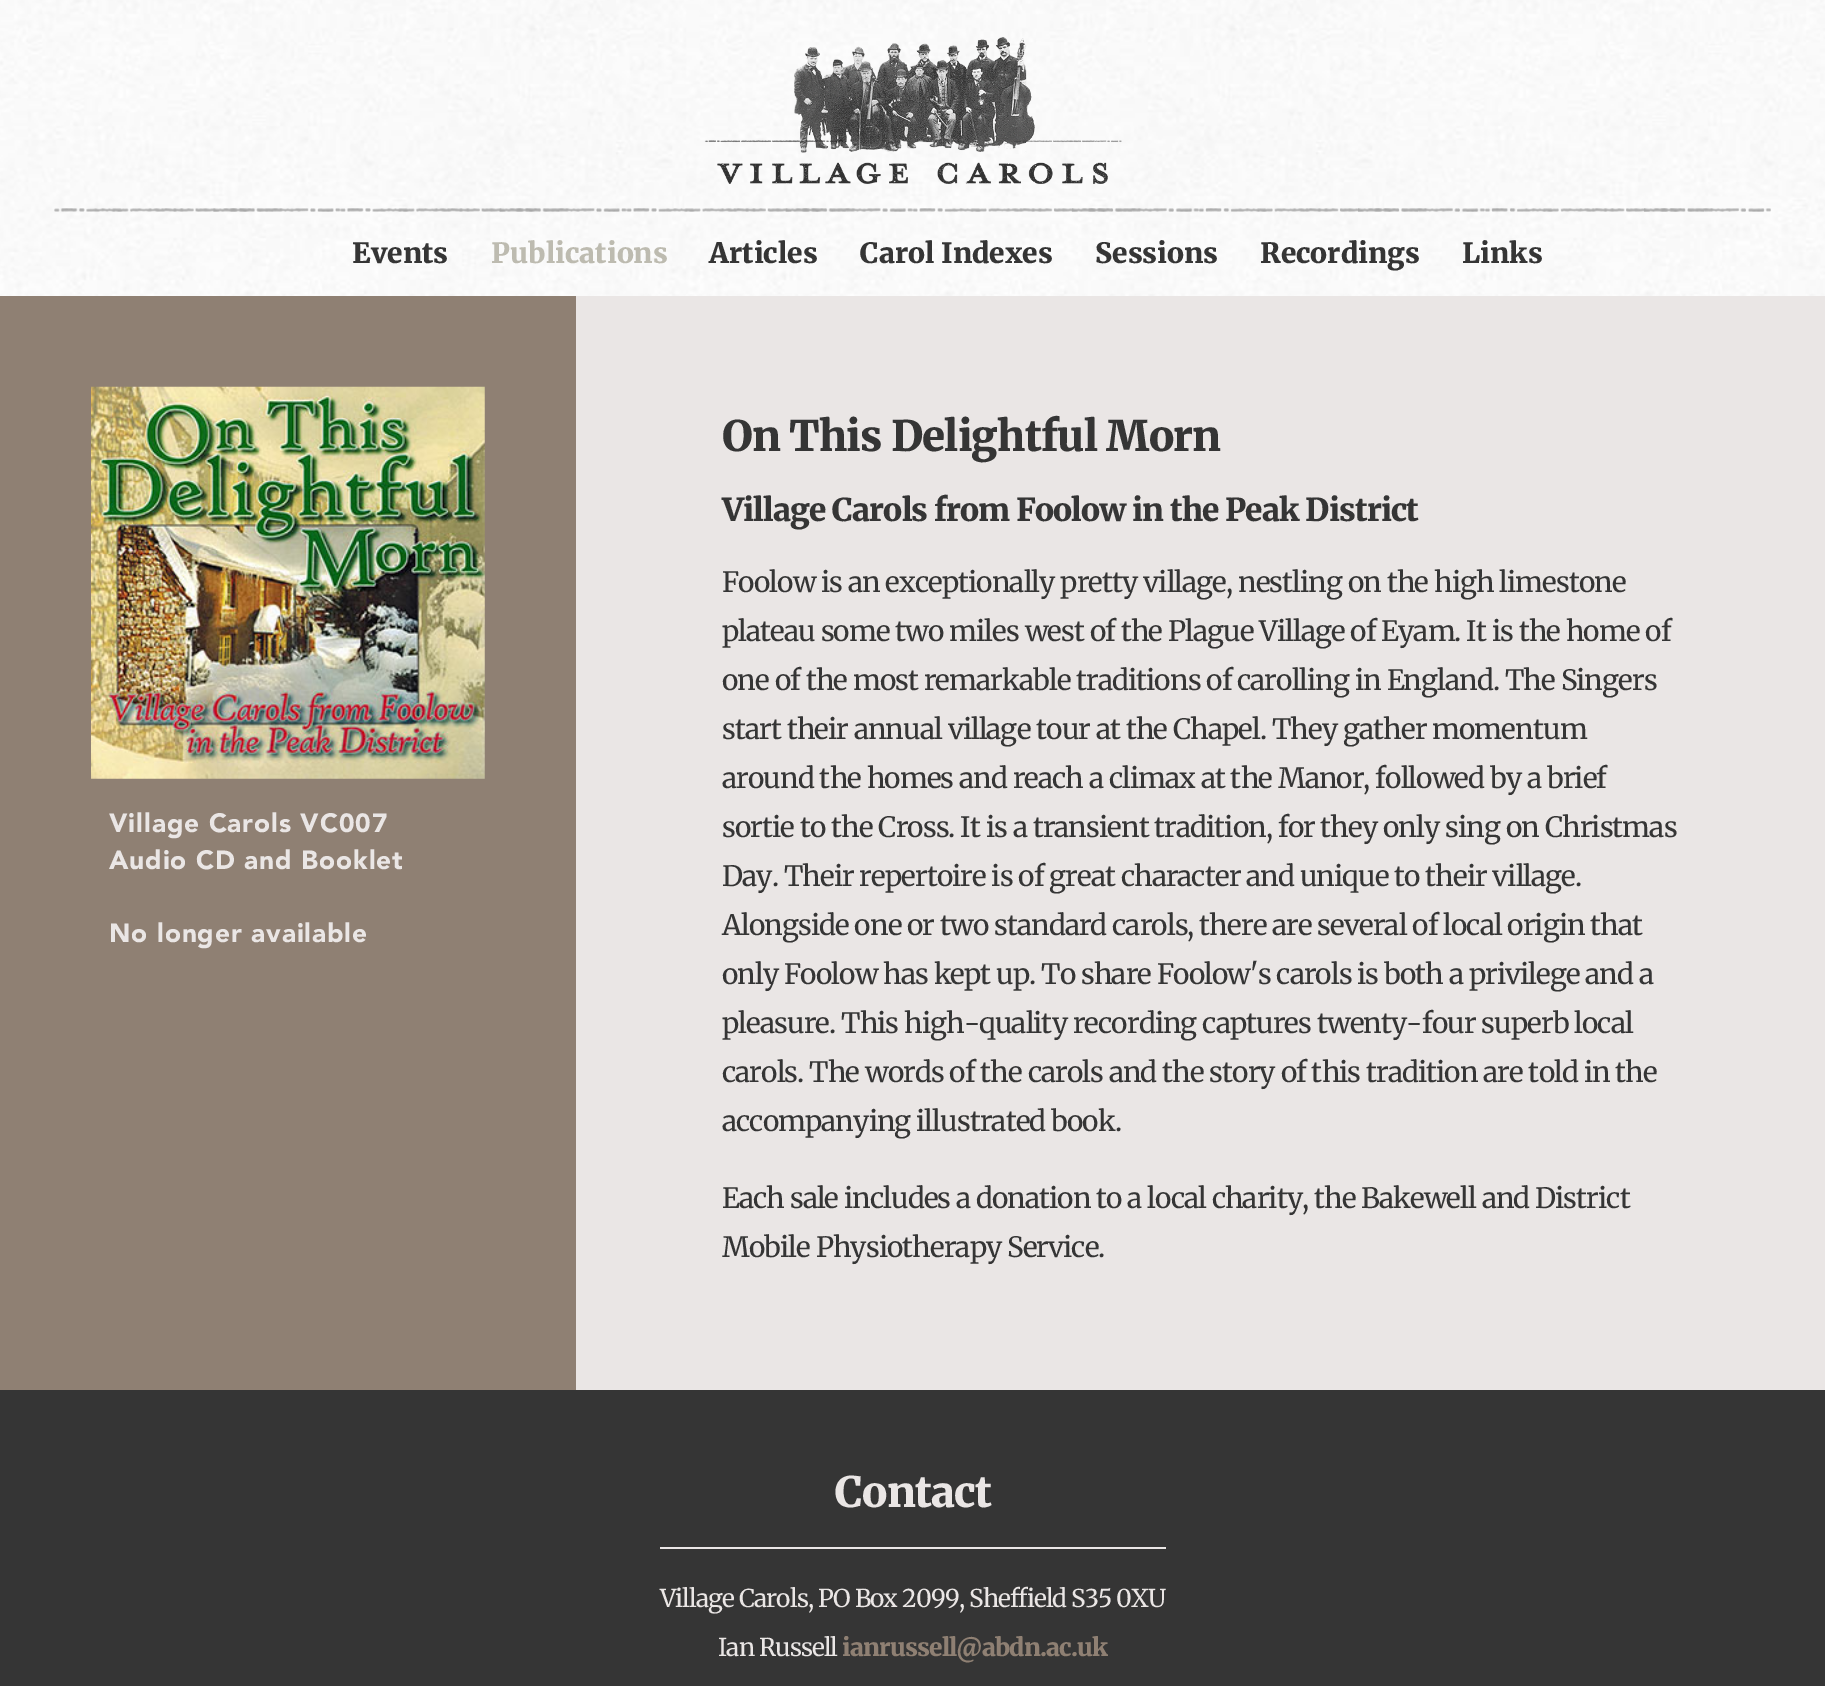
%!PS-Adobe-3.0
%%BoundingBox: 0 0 1825 1686
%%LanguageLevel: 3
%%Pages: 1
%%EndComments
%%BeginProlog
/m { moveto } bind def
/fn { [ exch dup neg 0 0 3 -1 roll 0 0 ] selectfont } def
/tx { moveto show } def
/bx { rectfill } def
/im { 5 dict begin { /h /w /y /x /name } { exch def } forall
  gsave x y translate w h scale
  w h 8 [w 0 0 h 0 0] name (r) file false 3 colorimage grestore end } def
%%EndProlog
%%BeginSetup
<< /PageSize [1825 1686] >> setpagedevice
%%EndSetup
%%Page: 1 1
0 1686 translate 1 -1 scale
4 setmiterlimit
1 setgray
0 0 1825 1686 bx
(image0.raw) 0 0 1825 296 im
(image1.raw) 704 37 418 147 im
(image2.raw) 54 208 1717 4 im
/Merriweather-Black 28 fn
0.208 setgray
(Events) 352 263 tx
0.741 0.733 0.69 setrgbcolor
(Publications) 491 263 tx
0.208 setgray
(Articles) 709 263 tx
(Carol Indexes) 860 263 tx
(Sessions) 1095 263 tx
(Recordings) 1260 263 tx
(Links) 1462 263 tx
0.561 0.502 0.451 setrgbcolor
0 296 576 1094 bx
(image3.raw) 91 386 394 393 im
/Avenir-Black 26.25 fn
0.918 0.902 0.898 setrgbcolor
109 832 m 0.9 0 (Village Carols VC007) ashow
109 869 m 0.9 0 (Audio CD and Booklet) ashow
109 942 m 0.9 0 (No longer available) ashow
576 296 1249 1094 bx
/Merriweather-Black 42 fn
0.208 setgray
722 451 m -0.88 0 (On This Delightful Morn) ashow
/Merriweather-Black 31.5 fn
722 521 m -0.88 0 (Village Carols from Foolow in the Peak District) ashow
/Merriweather-Regular 28 fn
722 592 m -0.88 0 (Foolow is an exceptionally pretty village, nestling on the high limestone) ashow
722 641 m -0.88 0 (plateau some two miles west of the Plague Village of Eyam. It is the home of) ashow
722 690 m -0.88 0 (one of the most remarkable traditions of carolling in England. The Singers) ashow
722 739 m -0.88 0 (start their annual village tour at the Chapel. They gather momentum) ashow
722 788 m -0.88 0 (around the homes and reach a climax at the Manor, followed by a brief) ashow
722 837 m -0.88 0 (sortie to the Cross. It is a transient tradition, for they only sing on Christmas) ashow
722 886 m -0.88 0 (Day. Their repertoire is of great character and unique to their village.) ashow
722 935 m -0.88 0 (Alongside one or two standard carols, there are several of local origin that) ashow
722 984 m -0.88 0 (only Foolow has kept up. To share Foolow's carols is both a privilege and a) ashow
722 1033 m -0.88 0 (pleasure. This high-quality recording captures twenty-four superb local) ashow
722 1082 m -0.88 0 (carols. The words of the carols and the story of this tradition are told in the) ashow
722 1131 m -0.88 0 (accompanying illustrated book.) ashow
722 1208 m -0.88 0 (Each sale includes a donation to a local charity, the Bakewell and District) ashow
722 1257 m -0.88 0 (Mobile Physiotherapy Service.) ashow
0 1390 1825 296 bx
/Merriweather-Black 42 fn
0.918 0.902 0.898 setrgbcolor
835 1507 m -0.88 0 (Contact) ashow
660 1547 506 2 bx
/Merriweather-Regular 24.5 fn
660 1607 m -0.88 0 (Village Carols, PO Box 2099, Sheffield S35 0XU) ashow
718 1656 m -0.88 0 (Ian Russell) ashow
/Merriweather-Black 24.5 fn
0.561 0.502 0.451 setrgbcolor
842 1656 m -0.88 0 (ianrussell@abdn.ac.uk) ashow
showpage
%%EOF
